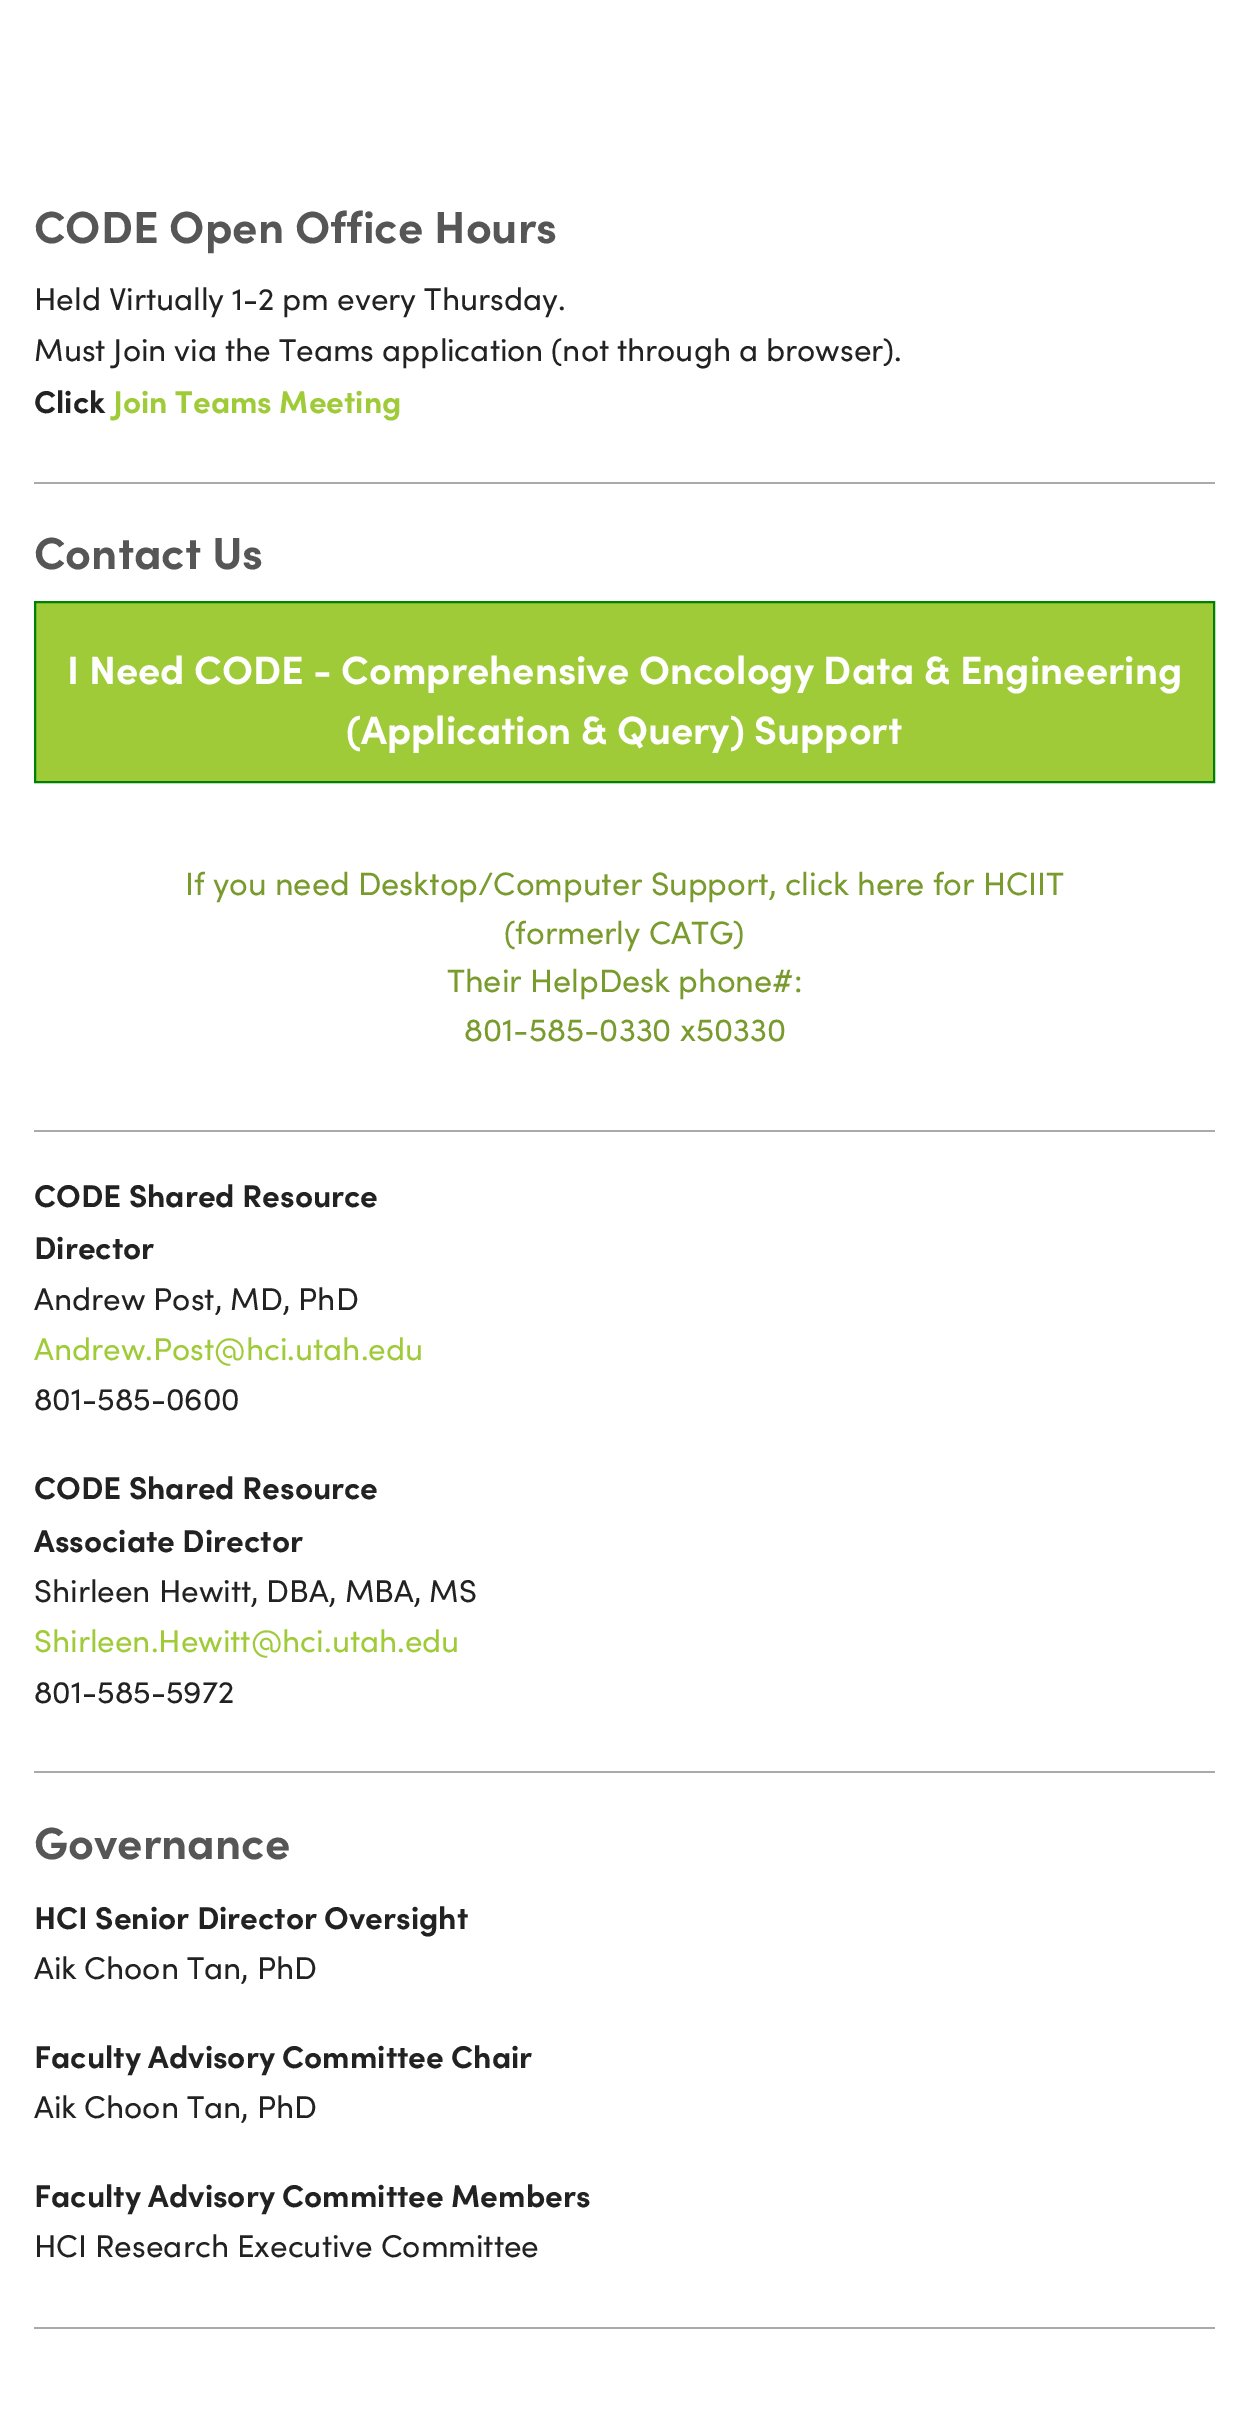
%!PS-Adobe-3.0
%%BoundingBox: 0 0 1248 2424
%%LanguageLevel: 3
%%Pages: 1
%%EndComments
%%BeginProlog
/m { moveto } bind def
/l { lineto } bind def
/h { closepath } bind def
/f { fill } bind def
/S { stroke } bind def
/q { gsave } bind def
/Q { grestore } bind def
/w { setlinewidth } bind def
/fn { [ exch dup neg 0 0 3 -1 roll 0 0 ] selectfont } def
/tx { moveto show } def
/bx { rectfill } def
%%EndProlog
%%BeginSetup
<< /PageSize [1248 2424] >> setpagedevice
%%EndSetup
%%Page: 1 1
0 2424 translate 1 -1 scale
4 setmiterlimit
1 setgray
0 0 1248 2424 bx
0.667 setgray
34 482 1181 2 bx
/Sofia-Bold 45 fn
0.337 setgray
(CODE Open Office Hours) 34 243 tx
/Sofia-Regular 31.5 fn
0.133 setgray
(Held Virtually 1-2 pm every Thursday.) 34 310 tx
(Must Join via the Teams application \(not through a browser\).) 34 361 tx
/Sofia-Bold 31.5 fn
(Click) 34 413 tx
0.627 0.796 0.224 setrgbcolor
(Join Teams Meeting) 113 413 tx
0.667 setgray
34 1771 1181 2 bx
/Sofia-Bold 45 fn
0.337 setgray
(Contact Us) 34 569 tx
0.667 setgray
34 1130 1181 2 bx
0.627 0.796 0.224 setrgbcolor
35 602 m 1214 602 l 1214 782 l 35 782 l h q f Q
0 0.502 0 setrgbcolor
2 w
S
/Sofia-Bold 39.6 fn
1 setgray
(I Need CODE - Comprehensive Oncology Data & Engineering) 67 684 tx
(\(Application & Query\) Support) 346 744 tx
/Sofia-Regular 32.4 fn
0.475 0.608 0.18 setrgbcolor
(If you need Desktop/Computer Support, click here for HCIIT) 185 895 tx
(\(formerly CATG\)) 504 944 tx
(Their HelpDesk phone#:) 447 992 tx
(801-585-0330 x50330) 464 1041 tx
/Sofia-Bold 31.5 fn
0.133 setgray
(CODE Shared Resource) 34 1207 tx
(Director) 34 1259 tx
/Sofia-Regular 31.5 fn
(Andrew Post, MD, PhD) 34 1310 tx
0.627 0.796 0.224 setrgbcolor
(Andrew.Post@hci.utah.edu) 34 1360 tx
0.133 setgray
(801-585-0600) 34 1410 tx
/Sofia-Bold 31.5 fn
(CODE Shared Resource) 34 1499 tx
(Associate Director) 34 1552 tx
/Sofia-Regular 31.5 fn
(Shirleen Hewitt, DBA, MBA, MS) 34 1602 tx
0.627 0.796 0.224 setrgbcolor
(Shirleen.Hewitt@hci.utah.edu) 34 1652 tx
0.133 setgray
(801-585-5972) 34 1703 tx
0.667 setgray
34 2327 1181 2 bx
/Sofia-Bold 45 fn
0.337 setgray
(Governance) 34 1859 tx
/Sofia-Bold 31.5 fn
0.133 setgray
(HCI Senior Director Oversight) 34 1929 tx
/Sofia-Regular 31.5 fn
(Aik Choon Tan, PhD) 34 1979 tx
/Sofia-Bold 31.5 fn
(Faculty Advisory Committee Chair) 34 2068 tx
/Sofia-Regular 31.5 fn
(Aik Choon Tan, PhD) 34 2118 tx
/Sofia-Bold 31.5 fn
(Faculty Advisory Committee Members) 34 2207 tx
/Sofia-Regular 31.5 fn
(HCI Research Executive Committee) 34 2257 tx
showpage
%%EOF
